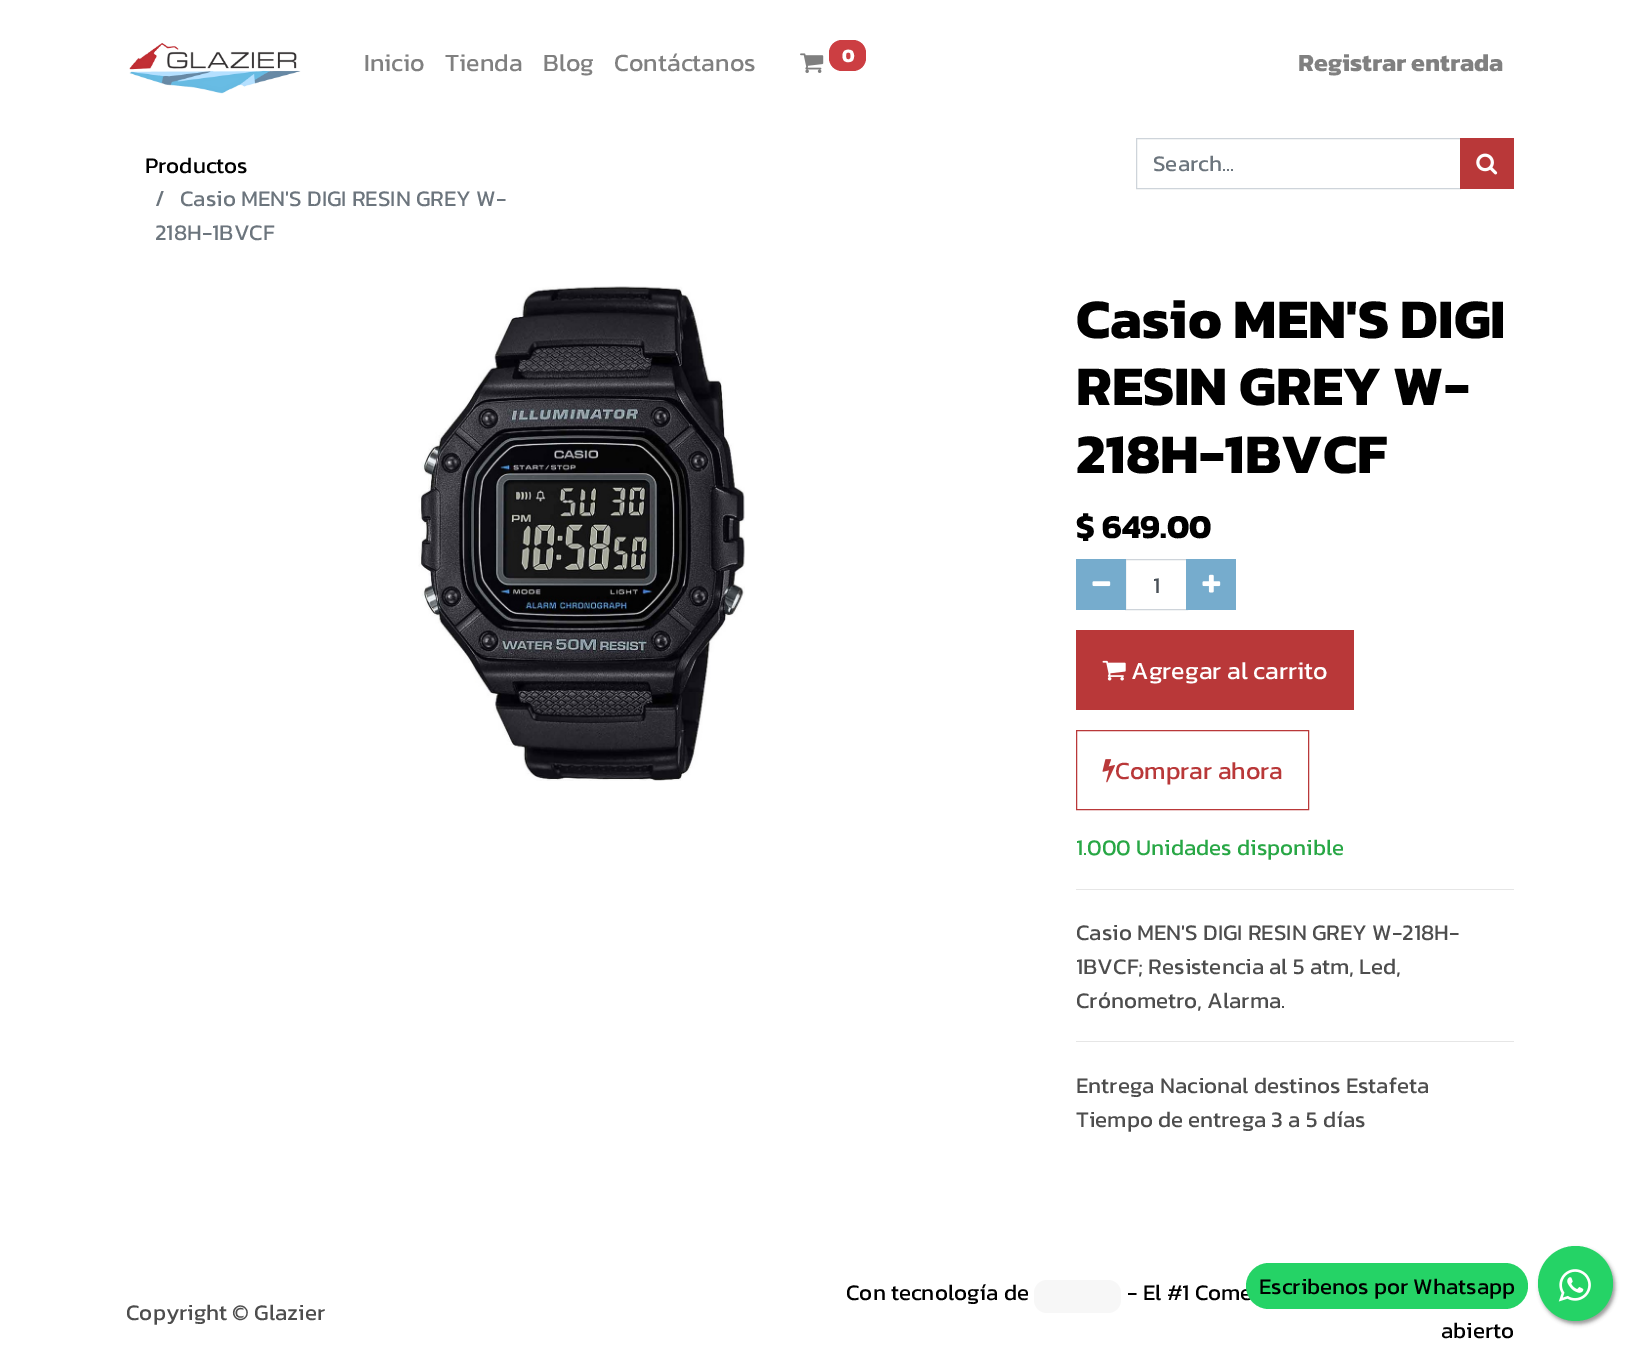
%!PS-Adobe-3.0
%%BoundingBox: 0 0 1640 1371
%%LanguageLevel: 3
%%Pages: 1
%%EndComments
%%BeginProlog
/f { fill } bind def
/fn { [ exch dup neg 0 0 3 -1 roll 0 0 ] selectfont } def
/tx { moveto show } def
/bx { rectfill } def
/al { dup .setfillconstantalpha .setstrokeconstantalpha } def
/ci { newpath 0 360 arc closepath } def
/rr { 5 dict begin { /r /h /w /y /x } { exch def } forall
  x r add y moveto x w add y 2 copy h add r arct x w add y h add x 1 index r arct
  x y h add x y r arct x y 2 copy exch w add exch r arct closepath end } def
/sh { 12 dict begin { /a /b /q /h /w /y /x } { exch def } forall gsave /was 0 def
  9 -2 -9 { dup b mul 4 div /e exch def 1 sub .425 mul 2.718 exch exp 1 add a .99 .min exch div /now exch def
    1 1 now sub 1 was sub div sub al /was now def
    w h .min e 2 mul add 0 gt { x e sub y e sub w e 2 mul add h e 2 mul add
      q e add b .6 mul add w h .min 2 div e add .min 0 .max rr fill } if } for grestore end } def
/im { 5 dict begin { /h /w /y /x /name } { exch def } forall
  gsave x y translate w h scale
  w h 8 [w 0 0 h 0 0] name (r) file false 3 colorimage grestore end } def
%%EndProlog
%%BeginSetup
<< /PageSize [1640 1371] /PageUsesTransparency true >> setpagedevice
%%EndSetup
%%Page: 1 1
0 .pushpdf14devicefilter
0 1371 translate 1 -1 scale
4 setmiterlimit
1 setgray
0 0 1640 1371 bx
(image0.raw) 129 43 172 51 im
/Kanit-Regular 25 fn
0.502 setgray
(Inicio) 364 71 tx
(Tienda) 445 71 tx
(Blog) 543 71 tx
(Contáctanos) 614 71 tx
(image1.raw) 800 53 24 20 im
0.8 0.243 0.259 setrgbcolor
829 40 37 31 13 rr f
/Kanit-Bold 19 fn
1 setgray
(0) 842 62 tx
/Kanit-Bold 25 fn
0.502 setgray
(Registrar entrada) 1298 71 tx
/Kanit-Regular 22.5 fn
0 setgray
(Productos) 145 173 tx
0.424 0.459 0.49 setrgbcolor
(/) 155 206 tx
(Casio MEN'S DIGI RESIN GREY W-) 180 206 tx
(218H-1BVCF) 155 240 tx
0.808 0.831 0.855 setrgbcolor
1136.5 138.5 324 50 rectstroke
0.424 0.459 0.49 setrgbcolor
(Search...) 1153 171 tx
0.725 0.22 0.224 setrgbcolor
1460 138 54 51 bx
(image2.raw) 1476 153 22 22 im
(image3.raw) 418 286 327 495 im
/Kanit-Bold 56.25 fn
0 setgray
(Casio MEN'S DIGI) 1076 338 tx
(RESIN GREY W-) 1076 405 tx
(218H-1BVCF) 1076 473 tx
/Kanit-Bold 33.75 fn
($ 649.00) 1076 538 tx
0.808 0.831 0.855 setrgbcolor
1125.5 559.5 62 50 rectstroke
0.463 0.675 0.804 setrgbcolor
1076 559 50 51 bx
(image4.raw) 1092 581 19 6 im
/Kanit-Regular 22.5 fn
0.286 0.314 0.341 setrgbcolor
(1) 1153 593 tx
0.463 0.675 0.804 setrgbcolor
1186 559 50 51 bx
(image5.raw) 1202 574 19 19 im
0.725 0.22 0.224 setrgbcolor
1076 630 278 80 bx
(image6.raw) 1102 660 24 21 im
/Kanit-Regular 25 fn
1 setgray
(Agregar al carrito) 1131 679 tx
0.725 0.22 0.224 setrgbcolor
1076.5 730.5 232 79 rectstroke
(image7.raw) 1102 759 13 24 im
(Comprar ahora) 1115 779 tx
/Kanit-Regular 22.5 fn
0.157 0.655 0.271 setrgbcolor
(1.000 Unidades disponible) 1076 855 tx
0.902 setgray
1076 889 438 1 bx
0.302 setgray
(Casio MEN'S DIGI RESIN GREY W-218H-) 1076 940 tx
(1BVCF; Resistencia al 5 atm, Led,) 1076 974 tx
(Crónometro, Alarma.) 1076 1008 tx
0.902 setgray
1076 1041 438 1 bx
0.302 setgray
(Entrega Nacional destinos Estafeta) 1076 1093 tx
(Tiempo de entrega 3 a 5 días) 1076 1127 tx
(Copyright © Glazier) 126 1320 tx
0 setgray
(Con tecnología de) 846 1300 tx
0.969 setgray
1034 1280 87 33 13 rr f
0 setgray
(- El #1 Come) 1127 1300 tx
(abierto) 1441 1338 tx
0.6 setgray
1540 1249 75 75 37.5 2 1 sh
0.145 0.827 0.4 setrgbcolor
1575.5 1283.5 37.5 ci f
(image8.raw) 1558 1269 33 33 im
1246 1263 282 46 23 rr f
0 setgray
(Escribenos por Whatsapp) 1259 1294 tx
.poppdf14devicefilter showpage
%%EOF
